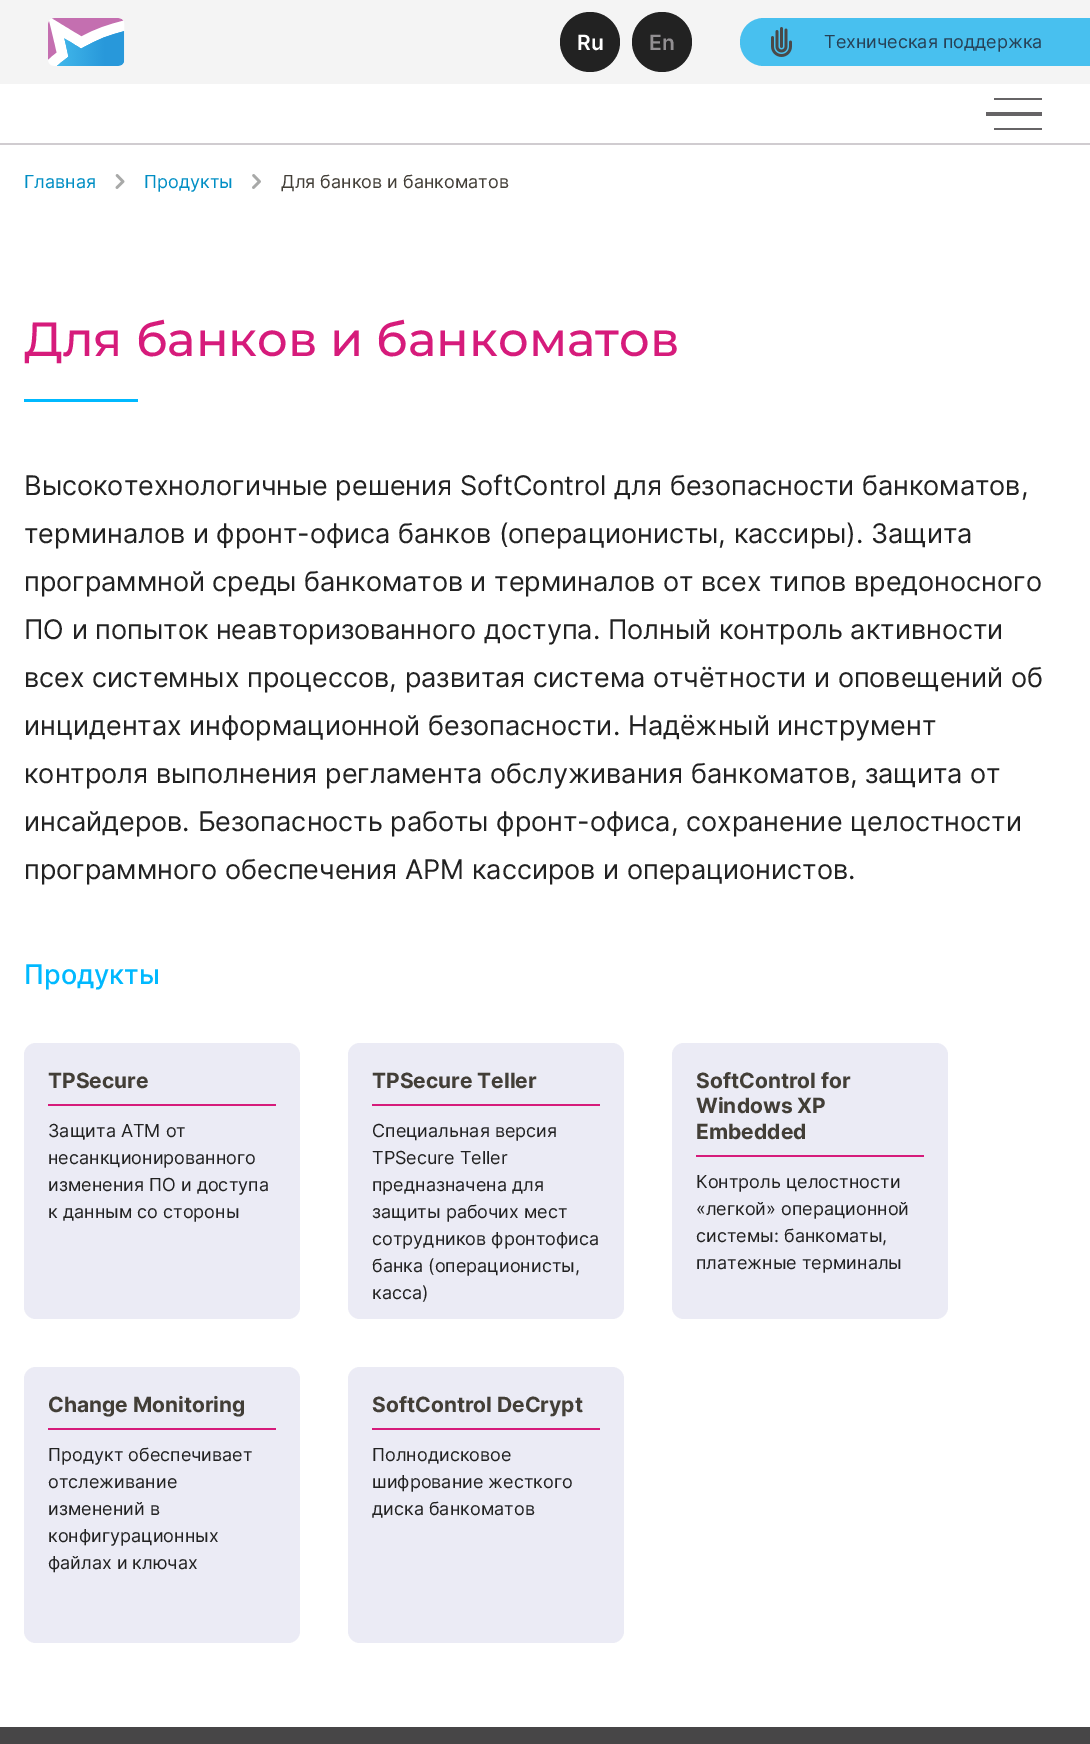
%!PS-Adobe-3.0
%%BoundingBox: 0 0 1090 1744
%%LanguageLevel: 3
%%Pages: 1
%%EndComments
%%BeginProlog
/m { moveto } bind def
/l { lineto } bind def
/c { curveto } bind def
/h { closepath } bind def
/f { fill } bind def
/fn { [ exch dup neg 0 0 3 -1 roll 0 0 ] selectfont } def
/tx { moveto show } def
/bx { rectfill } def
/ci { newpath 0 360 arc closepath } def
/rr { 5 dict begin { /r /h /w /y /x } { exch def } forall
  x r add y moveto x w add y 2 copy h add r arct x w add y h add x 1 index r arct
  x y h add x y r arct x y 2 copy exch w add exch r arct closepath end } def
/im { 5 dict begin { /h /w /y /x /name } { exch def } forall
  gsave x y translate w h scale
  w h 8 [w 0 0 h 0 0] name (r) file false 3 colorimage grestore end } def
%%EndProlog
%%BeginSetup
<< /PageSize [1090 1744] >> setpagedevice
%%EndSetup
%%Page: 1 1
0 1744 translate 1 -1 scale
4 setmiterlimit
1 setgray
0 0 1090 1744 bx
0.957 setgray
0 0 1090 84 bx
(image0.raw) 48 18 77 48 im
0.133 setgray
590 42 30 ci f
/Inter-SemiBold 21 fn
1 setgray
(Ru) 577 50 tx
0.133 setgray
662 42 30 ci f
0.573 0.561 0.573 setrgbcolor
(En) 649 50 tx
0.282 0.753 0.937 setrgbcolor
764 18 m 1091 18 l 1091 66 l 764 66 l 750.5 66 740 55.5 740 42 c 740 28.5 750.5 18 764 18 c h f
(image1.raw) 771 27 21 30 im
/Inter-Regular 18 fn
0.153 0.255 0.337 setrgbcolor
(Техническая поддержка) 824 48 tx
0.816 0.8 0.816 setrgbcolor
0 143 1090 2 bx
0.4 0.392 0.4 setrgbcolor
994 98 48 2 bx
986 112 56 4 bx
994 128 48 2 bx
0 0.557 0.769 setrgbcolor
(Главная) 24 188 tx
(image2.raw) 115 174 10 15 im
(Продукты) 144 188 tx
(image3.raw) 252 174 9 15 im
0.259 0.243 0.216 setrgbcolor
(Для банков и банкоматов) 281 188 tx
/Montserrat-Medium 48 fn
0.839 0.106 0.482 setrgbcolor
(Для банков и банкоматов) 24 356 tx
0 0.725 1 setrgbcolor
24 399 114 3 bx
/Inter-Regular 27 fn
0.133 setgray
(Высокотехнологичные решения SoftControl для безопасности банкоматов,) 24 495 tx
(терминалов и фронт-офиса банков \(операционисты, кассиры\). Защита) 24 543 tx
(программной среды банкоматов и терминалов от всех типов вредоносного) 24 591 tx
(ПО и попыток неавторизованного доступа. Полный контроль активности) 24 639 tx
(всех системных процессов, развитая система отчётности и оповещений об) 24 687 tx
(инцидентах информационной безопасности. Надёжный инструмент) 24 735 tx
(контроля выполнения регламента обслуживания банкоматов, защита от) 24 783 tx
(инсайдеров. Безопасность работы фронт-офиса, сохранение целостности) 24 831 tx
(программного обеспечения АРМ кассиров и операционистов.) 24 879 tx
/Inter-Medium 27 fn
0 0.725 1 setrgbcolor
(Продукты) 24 984 tx
0.922 0.922 0.961 setrgbcolor
24 1043 276 276 12 rr f
/Inter-Bold 21 fn
0.259 0.243 0.216 setrgbcolor
(TPSecure) 48 1088 tx
0.839 0.106 0.482 setrgbcolor
48 1104 228 2 bx
/Inter-Regular 18 fn
0.133 setgray
(Защита АТМ от) 48 1137 tx
(несанкционированного) 48 1164 tx
(изменения ПО и доступа) 48 1191 tx
(к данным со стороны) 48 1218 tx
0.922 0.922 0.961 setrgbcolor
348 1043 276 276 12 rr f
/Inter-Bold 21 fn
0.259 0.243 0.216 setrgbcolor
(TPSecure Teller) 372 1088 tx
0.839 0.106 0.482 setrgbcolor
372 1104 228 2 bx
/Inter-Regular 18 fn
0.133 setgray
(Специальная версия) 372 1137 tx
(TPSecure Teller) 372 1164 tx
(предназначена для) 372 1191 tx
(защиты рабочих мест) 372 1218 tx
(сотрудников фронтофиса) 372 1245 tx
(банка \(операционисты,) 372 1272 tx
(касса\)) 372 1299 tx
0.922 0.922 0.961 setrgbcolor
672 1043 276 276 12 rr f
/Inter-Bold 21 fn
0.259 0.243 0.216 setrgbcolor
(SoftControl for) 696 1088 tx
(Windows XP) 696 1113 tx
(Embedded) 696 1139 tx
0.839 0.106 0.482 setrgbcolor
696 1155 228 2 bx
/Inter-Regular 18 fn
0.133 setgray
(Контроль целостности) 696 1188 tx
(«легкой» операционной) 696 1215 tx
(системы: банкоматы,) 696 1242 tx
(платежные терминалы) 696 1269 tx
0.922 0.922 0.961 setrgbcolor
24 1367 276 276 12 rr f
/Inter-Bold 21 fn
0.259 0.243 0.216 setrgbcolor
(Сhange Monitoring) 48 1412 tx
0.839 0.106 0.482 setrgbcolor
48 1428 228 2 bx
/Inter-Regular 18 fn
0.133 setgray
(Продукт обеспечивает) 48 1461 tx
(отслеживание) 48 1488 tx
(изменений в) 48 1515 tx
(конфигурационных) 48 1542 tx
(файлах и ключах) 48 1569 tx
0.922 0.922 0.961 setrgbcolor
348 1367 276 276 12 rr f
/Inter-Bold 21 fn
0.259 0.243 0.216 setrgbcolor
(SoftControl DeCrypt) 372 1412 tx
0.839 0.106 0.482 setrgbcolor
372 1428 228 2 bx
/Inter-Regular 18 fn
0.133 setgray
(Полнодисковое) 372 1461 tx
(шифрование жесткого) 372 1488 tx
(диска банкоматов) 372 1515 tx
0.278 0.275 0.278 setrgbcolor
0 1727 1090 17 bx
showpage
%%EOF
